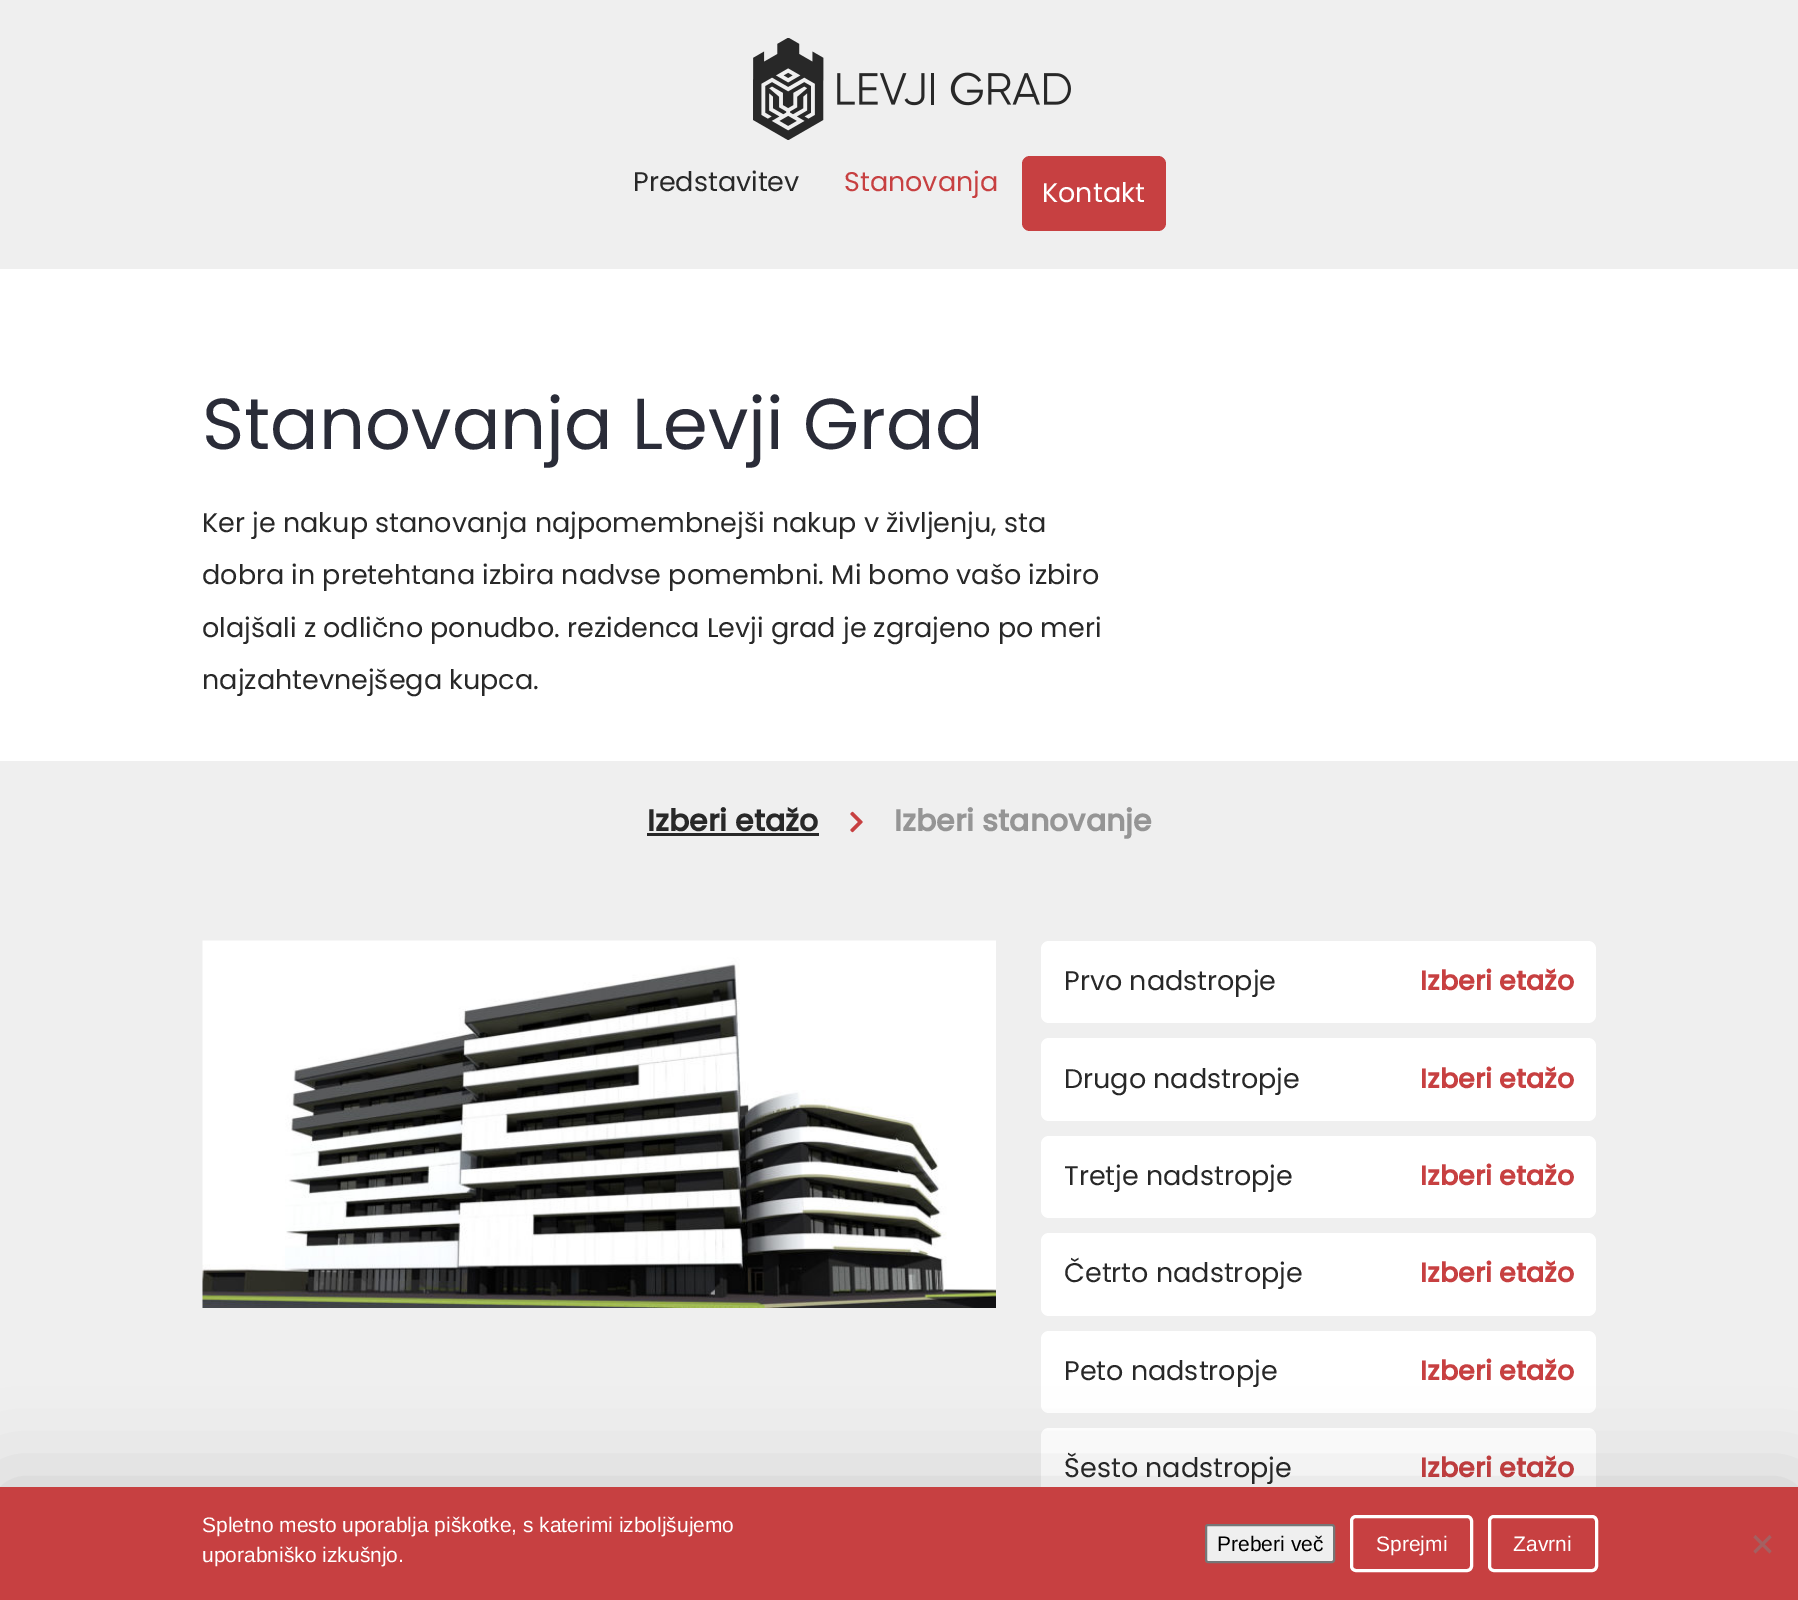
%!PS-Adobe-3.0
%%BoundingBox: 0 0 1798 1600
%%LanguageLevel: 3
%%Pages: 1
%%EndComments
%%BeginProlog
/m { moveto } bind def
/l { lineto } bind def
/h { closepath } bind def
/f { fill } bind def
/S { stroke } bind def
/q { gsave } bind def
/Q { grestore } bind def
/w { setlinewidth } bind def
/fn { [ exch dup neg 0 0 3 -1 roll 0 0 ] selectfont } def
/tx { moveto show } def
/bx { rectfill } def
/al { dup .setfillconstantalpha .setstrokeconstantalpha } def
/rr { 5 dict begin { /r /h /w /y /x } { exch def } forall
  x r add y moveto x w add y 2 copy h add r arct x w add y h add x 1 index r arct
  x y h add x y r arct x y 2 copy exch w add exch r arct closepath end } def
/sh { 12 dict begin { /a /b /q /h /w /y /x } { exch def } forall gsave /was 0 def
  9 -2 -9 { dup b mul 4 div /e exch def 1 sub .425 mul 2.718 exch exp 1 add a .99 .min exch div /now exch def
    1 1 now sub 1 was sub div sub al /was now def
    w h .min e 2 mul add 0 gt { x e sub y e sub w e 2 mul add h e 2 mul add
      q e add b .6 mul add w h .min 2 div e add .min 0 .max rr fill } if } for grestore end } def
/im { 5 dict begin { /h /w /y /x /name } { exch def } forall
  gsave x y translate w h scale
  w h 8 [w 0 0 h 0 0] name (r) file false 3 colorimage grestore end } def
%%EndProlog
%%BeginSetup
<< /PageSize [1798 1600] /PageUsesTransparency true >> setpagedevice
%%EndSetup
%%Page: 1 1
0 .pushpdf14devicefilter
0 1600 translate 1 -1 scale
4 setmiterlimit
1 setgray
0 0 1798 1600 bx
0.937 setgray
0 0 1798 269 bx
(image0.raw) 753 38 318 102 im
/Poppins-Regular 27 fn
0.157 setgray
(Predstavitev) 633 191 tx
0.78 0.251 0.255 setrgbcolor
(Stanovanja) 844 191 tx
1022 156 144 75 8 rr f
1 setgray
(Kontakt) 1042 202 tx
/Poppins-Regular 72 fn
0.165 0.173 0.22 setrgbcolor
(Stanovanja Levji Grad) 202 449 tx
/Poppins-Regular 27 fn
0.157 setgray
(Ker je nakup stanovanja najpomembnejši nakup v življenju, sta) 202 532 tx
(dobra in pretehtana izbira nadvse pomembni. Mi bomo vašo izbiro) 202 584 tx
(olajšali z odlično ponudbo. rezidenca Levji grad je zgrajeno po meri) 202 637 tx
(najzahtevnejšega kupca.) 202 689 tx
0.937 setgray
0 761 1798 726 bx
/Poppins-Bold 30 fn
0.157 setgray
(Izberi etažo) 647 831 tx
647 833 172 3 bx
(image1.raw) 850 811 13 22 im
0.584 setgray
(Izberi stanovanje) 894 831 tx
(image2.raw) 202 940 794 368 im
1 setgray
1041 941 555 82 8 rr f
/Poppins-Regular 27 fn
0.157 setgray
(Prvo nadstropje) 1064 990 tx
/Poppins-Bold 27 fn
0.78 0.251 0.255 setrgbcolor
(Izberi etažo) 1420 990 tx
1 setgray
1041 1038 555 83 8 rr f
/Poppins-Regular 27 fn
0.157 setgray
(Drugo nadstropje) 1064 1088 tx
/Poppins-Bold 27 fn
0.78 0.251 0.255 setrgbcolor
(Izberi etažo) 1420 1088 tx
1 setgray
1041 1136 555 82 8 rr f
/Poppins-Regular 27 fn
0.157 setgray
(Tretje nadstropje) 1064 1185 tx
/Poppins-Bold 27 fn
0.78 0.251 0.255 setrgbcolor
(Izberi etažo) 1420 1185 tx
1 setgray
1041 1233 555 83 8 rr f
/Poppins-Regular 27 fn
0.157 setgray
(Četrto nadstropje) 1064 1282 tx
/Poppins-Bold 27 fn
0.78 0.251 0.255 setrgbcolor
(Izberi etažo) 1420 1282 tx
1 setgray
1041 1331 555 82 8 rr f
/Poppins-Regular 27 fn
0.157 setgray
(Peto nadstropje) 1064 1380 tx
/Poppins-Bold 27 fn
0.78 0.251 0.255 setrgbcolor
(Izberi etažo) 1420 1380 tx
1 setgray
1041 1428 555 83 8 rr f
/Poppins-Regular 27 fn
0.157 setgray
(Šesto nadstropje) 1064 1477 tx
/Poppins-Bold 27 fn
0.78 0.251 0.255 setrgbcolor
(Izberi etažo) 1420 1477 tx
0 setgray
0 1487 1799 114 0 45 0.15 sh
0.78 0.251 0.255 setrgbcolor
0 1487 1798 113 bx
/LiberationSans-Regular 21 fn
1 setgray
(Spletno mesto uporablja piškotke, s katerimi izboljšujemo) 202 1532 tx
(uporabniško izkušnjo.) 202 1562 tx
0.937 setgray
1206 1525 128 37 2 rr q f Q
0.463 setgray
2 w
S
0 setgray
(Preberi več) 1217 1551 tx
1 setgray
3 w
1351.5 1516.5 120 54 4.5 rr S
(Sprejmi) 1376 1551 tx
1489.5 1516.5 107 54 4.5 rr S
(Zavrni) 1513 1551 tx
0.643 0.376 0.38 setrgbcolor
1769.5 1535 m 1771.5 1537.5 l 1755.5 1553.5 l 1753.5 1551 l h f
1753.5 1537.5 m 1755.5 1535 l 1771.5 1551 l 1769.5 1553.5 l h f
.poppdf14devicefilter showpage
%%EOF
